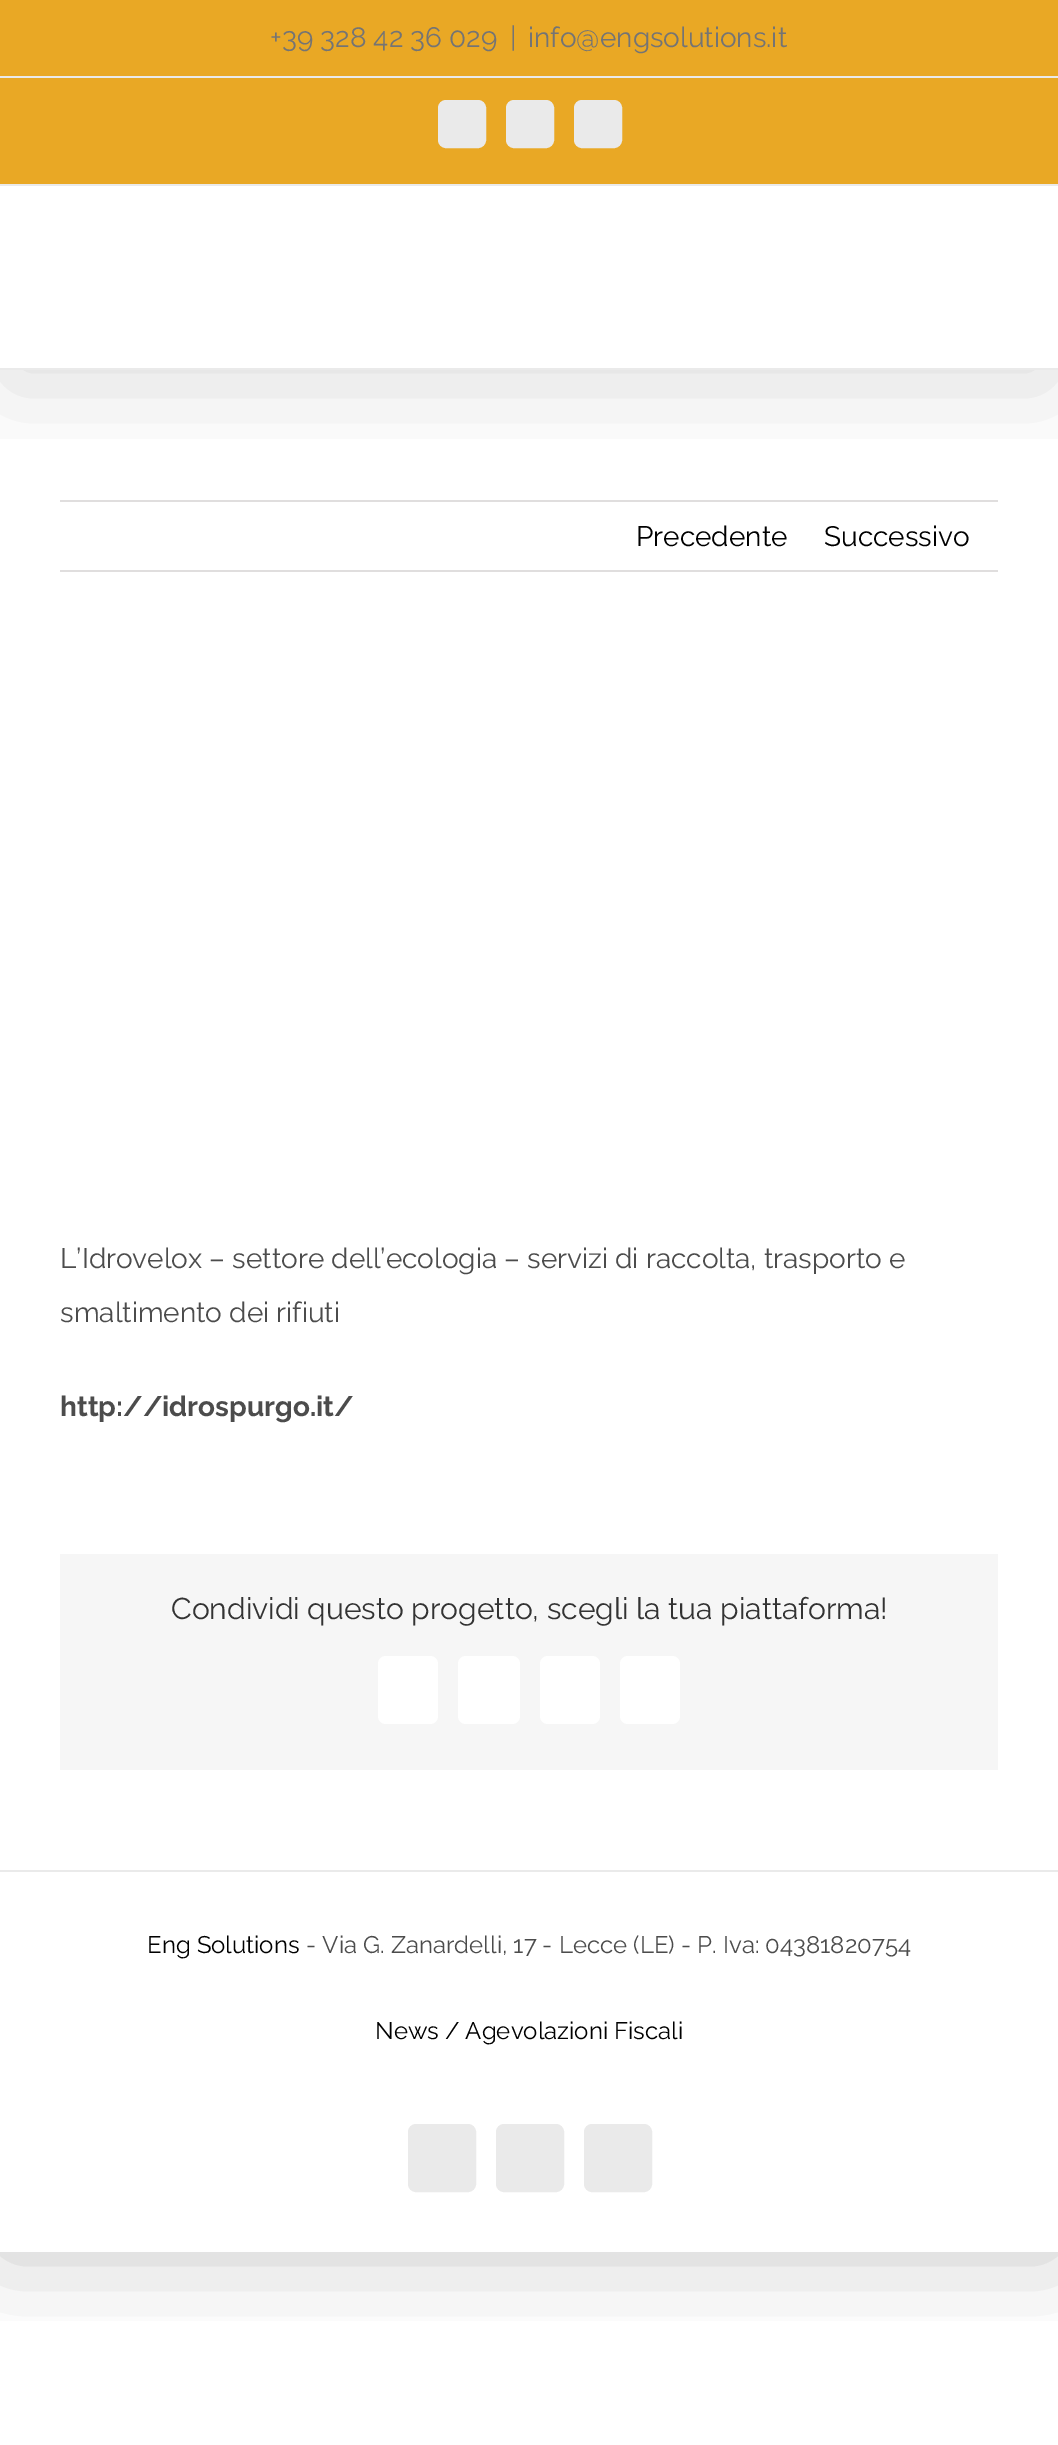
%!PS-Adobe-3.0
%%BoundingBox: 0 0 1058 2445
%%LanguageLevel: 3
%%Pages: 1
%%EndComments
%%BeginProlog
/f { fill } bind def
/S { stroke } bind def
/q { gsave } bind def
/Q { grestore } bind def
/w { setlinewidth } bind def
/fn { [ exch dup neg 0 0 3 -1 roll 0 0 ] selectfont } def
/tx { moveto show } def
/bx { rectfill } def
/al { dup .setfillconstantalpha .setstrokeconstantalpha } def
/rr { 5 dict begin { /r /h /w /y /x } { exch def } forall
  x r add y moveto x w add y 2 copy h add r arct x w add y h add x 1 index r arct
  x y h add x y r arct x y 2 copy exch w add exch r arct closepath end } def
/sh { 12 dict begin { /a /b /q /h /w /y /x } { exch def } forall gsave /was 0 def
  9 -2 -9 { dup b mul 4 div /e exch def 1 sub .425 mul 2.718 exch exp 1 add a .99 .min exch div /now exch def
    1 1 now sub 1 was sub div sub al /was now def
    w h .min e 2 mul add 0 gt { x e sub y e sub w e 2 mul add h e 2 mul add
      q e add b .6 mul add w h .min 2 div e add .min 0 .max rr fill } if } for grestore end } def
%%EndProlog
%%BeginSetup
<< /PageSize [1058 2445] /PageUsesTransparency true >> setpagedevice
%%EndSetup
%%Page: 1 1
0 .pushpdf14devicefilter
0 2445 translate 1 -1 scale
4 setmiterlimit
1 setgray
0 0 1058 2445 bx
q
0 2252 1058 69 rectclip
0 setgray
-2 -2 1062 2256 0 50 0.22 sh
Q
0.878 0.871 0.871 setrgbcolor
60 500 938 2 bx
q
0 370 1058 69 rectclip
0 setgray
4 24 1050 362 0 50 0.14 sh
Q
0.914 0.659 0.145 setrgbcolor
0 0 1058 184 bx
0.918 setgray
0 184 1058 2 bx
0 76 1058 2 bx
/Raleway-Regular 28 fn
0.455 setgray
(+39 328 42 36 029) 270 47 tx
(|) 510 47 tx
(info@engsolutions.it) 528 47 tx
0.918 setgray
439 101 46 46 7 rr q f Q
2 w
S
507 101 46 46 7 rr q f Q
S
575 101 46 46 7 rr q f Q
S
0 368 1058 2 bx
0.878 0.871 0.871 setrgbcolor
60 570 938 2 bx
0 setgray
(Precedente) 636 546 tx
(Successivo) 824 546 tx
0.298 setgray
(L’Idrovelox – settore dell’ecologia – servizi di raccolta, trasporto e) 60 1268 tx
(smaltimento dei rifiuti) 60 1322 tx
/Raleway-Bold 28 fn
(http://idrospurgo.it/) 60 1416 tx
0.965 setgray
60 1554 938 216 bx
/Raleway-Regular 30 fn
0.2 setgray
(Condividi questo progetto, scegli la tua piattaforma!) 171 1619 tx
1 setgray
378 1656 60 68 8 rr f
458 1656 62 68 8 rr f
540 1656 60 68 8 rr f
620 1656 60 68 8 rr f
0.918 setgray
0 1870 1058 2 bx
/Raleway-Regular 24 fn
0 setgray
(Eng Solutions) 147 1953 tx
0.298 setgray
(- Via G. Zanardelli, 17 - Lecce \(LE\) - P. Iva: 04381820754) 306 1953 tx
0 setgray
(News / Agevolazioni Fiscali) 375 2039 tx
0.918 setgray
409 2125 66 66 7 rr q f Q
S
497 2125 66 66 7 rr q f Q
S
585 2125 66 66 7 rr q f Q
S
.poppdf14devicefilter showpage
%%EOF
